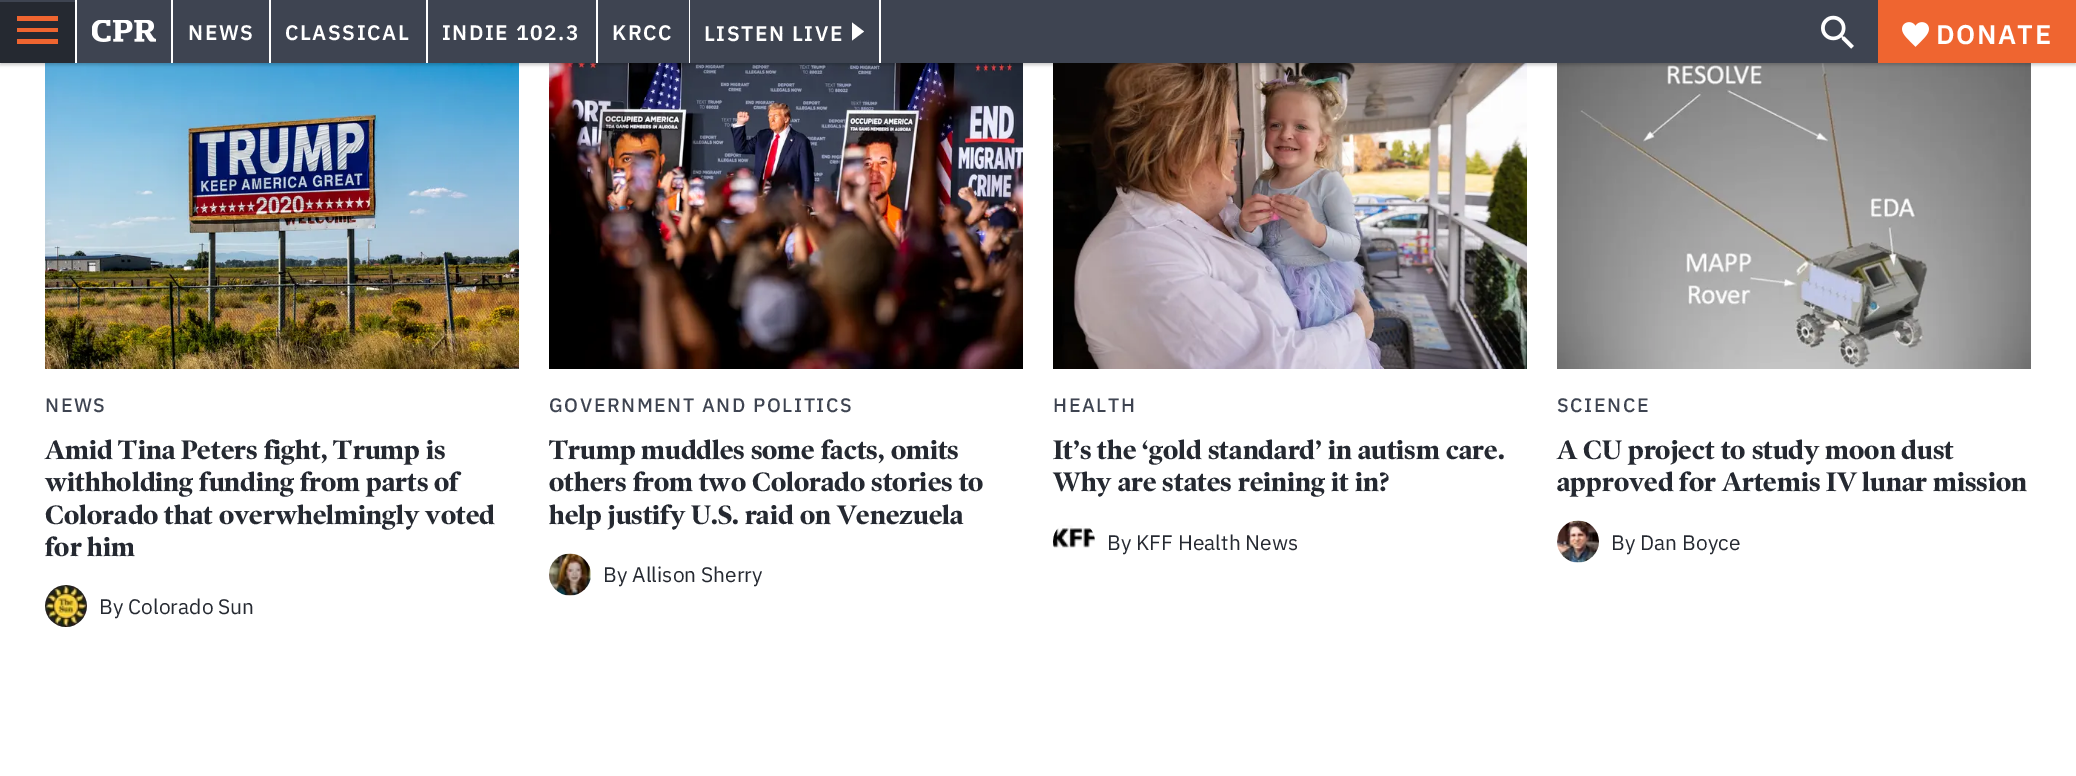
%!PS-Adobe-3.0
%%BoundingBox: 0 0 2076 776
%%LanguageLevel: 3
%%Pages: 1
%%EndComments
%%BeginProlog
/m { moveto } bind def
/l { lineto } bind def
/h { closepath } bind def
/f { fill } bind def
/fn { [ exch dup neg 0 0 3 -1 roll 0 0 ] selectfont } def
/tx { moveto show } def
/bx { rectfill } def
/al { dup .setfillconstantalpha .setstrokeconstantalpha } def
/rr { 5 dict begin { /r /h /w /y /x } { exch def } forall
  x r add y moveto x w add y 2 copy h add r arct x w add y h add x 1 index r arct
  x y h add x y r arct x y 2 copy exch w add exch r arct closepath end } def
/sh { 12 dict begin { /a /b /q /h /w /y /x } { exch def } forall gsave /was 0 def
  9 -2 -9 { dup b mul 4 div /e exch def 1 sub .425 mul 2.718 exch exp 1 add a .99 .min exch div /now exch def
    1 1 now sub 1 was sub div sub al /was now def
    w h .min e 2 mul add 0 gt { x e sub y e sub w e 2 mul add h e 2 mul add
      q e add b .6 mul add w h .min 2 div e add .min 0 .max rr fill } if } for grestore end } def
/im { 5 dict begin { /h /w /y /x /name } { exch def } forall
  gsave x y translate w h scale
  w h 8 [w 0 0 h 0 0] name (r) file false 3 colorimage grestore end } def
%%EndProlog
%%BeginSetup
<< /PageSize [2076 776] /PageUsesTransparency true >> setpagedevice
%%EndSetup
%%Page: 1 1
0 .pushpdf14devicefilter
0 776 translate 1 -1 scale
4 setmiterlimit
1 setgray
0 0 2076 776 bx
(image3.raw) 45 63 474 306 im
(image5.raw) 549 63 474 306 im
(image7.raw) 1053 63 474 306 im
(image9.raw) 1557 63 474 306 im
0 setgray
0 2 2076 63 0 1.5 0.2 sh
0.243 0.267 0.318 setrgbcolor
0 0 1878 63 bx
0.145 0.161 0.192 setrgbcolor
0 2 75 61 bx
0.937 0.396 0.188 setrgbcolor
17 44 m 58 44 l 58 39 l 17 39 l h 17 32 m 58 32 l 58 28 l 17 28 l h 17 16 m 17 21 l 58 21 l 58 16 l h f
1 setgray
171 0 2 63 bx
75 0 2 63 bx
(image0.raw) 92 20 64 22 im
269 0 2 63 bx
/IBMPlexSans-SemiBold 21 fn
188 40 m 1.5 0 (NEWS) ashow
426 0 2 63 bx
285 40 m 1.5 0 (CLASSICAL) ashow
596 0 2 63 bx
442 40 m 1.5 0 (INDIE 102.3) ashow
689 0 1 63 bx
612 40 m 1.5 0 (KRCC) ashow
879 0 2 63 bx
704 41 m 1.5 0 (LISTEN LIVE) ashow
852 40.5 m 852 22.5 l 864 31.5 l h f
(image1.raw) 1821 15 33 34 im
0.937 0.396 0.188 setrgbcolor
1878 0 198 63 bx
(image2.raw) 1902 22 27 25 im
/IBMPlexSans-SemiBold 27 fn
1 setgray
1936 44 m 1.5 0 (DONATE) ashow
/IBMPlexSans-Medium 19.5 fn
0.243 0.267 0.318 setrgbcolor
45 412 m 1.6 0 (NEWS) ashow
/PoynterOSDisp-Bold 27 fn
0.145 0.161 0.192 setrgbcolor
(Amid Tina Peters fight, Trump is) 45 459 tx
(withholding funding from parts of) 45 491 tx
(Colorado that overwhelmingly voted) 45 524 tx
(for him) 45 556 tx
(image4.raw) 45 585 42 42 im
/IBMPlexSans-Regular 21 fn
(By Colorado Sun) 99 614 tx
/IBMPlexSans-Medium 19.5 fn
0.243 0.267 0.318 setrgbcolor
549 412 m 1.6 0 (GOVERNMENT AND POLITICS) ashow
/PoynterOSDisp-Bold 27 fn
0.145 0.161 0.192 setrgbcolor
(Trump muddles some facts, omits) 549 459 tx
(others from two Colorado stories to) 549 491 tx
(help justify U.S. raid on Venezuela) 549 524 tx
(image6.raw) 549 553 42 43 im
/IBMPlexSans-Regular 21 fn
(By Allison Sherry) 603 582 tx
/IBMPlexSans-Medium 19.5 fn
0.243 0.267 0.318 setrgbcolor
1053 412 m 1.6 0 (HEALTH) ashow
/PoynterOSDisp-Bold 27 fn
0.145 0.161 0.192 setrgbcolor
(It’s the ‘gold standard’ in autism care.) 1053 459 tx
(Why are states reining it in?) 1053 491 tx
(image8.raw) 1053 525 42 23 im
/IBMPlexSans-Regular 21 fn
(By KFF Health News) 1107 550 tx
/IBMPlexSans-Medium 19.5 fn
0.243 0.267 0.318 setrgbcolor
1557 412 m 1.6 0 (SCIENCE) ashow
/PoynterOSDisp-Bold 27 fn
0.145 0.161 0.192 setrgbcolor
(A CU project to study moon dust) 1557 459 tx
(approved for Artemis IV lunar mission) 1557 491 tx
(image10.raw) 1557 520 42 43 im
/IBMPlexSans-Regular 21 fn
(By Dan Boyce) 1611 550 tx
.poppdf14devicefilter showpage
%%EOF
